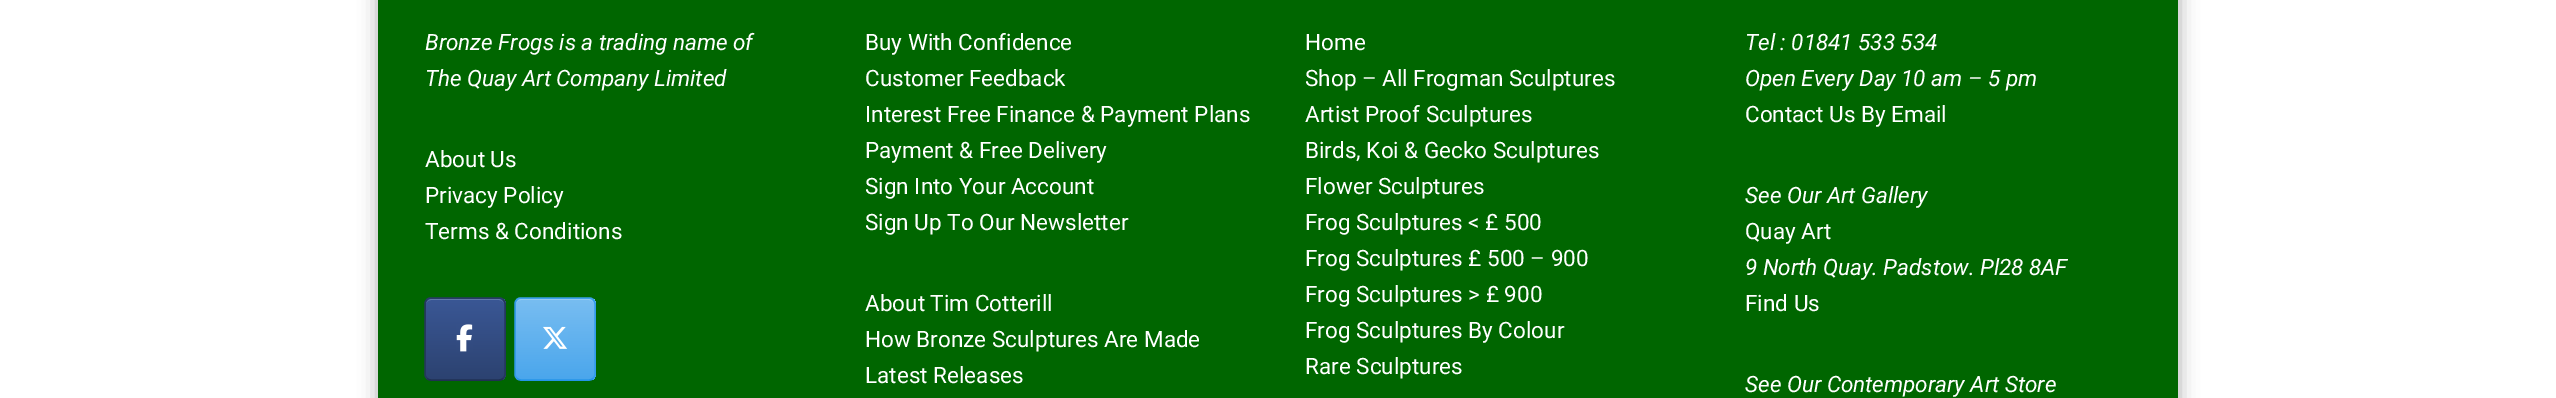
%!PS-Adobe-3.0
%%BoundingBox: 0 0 2556 398
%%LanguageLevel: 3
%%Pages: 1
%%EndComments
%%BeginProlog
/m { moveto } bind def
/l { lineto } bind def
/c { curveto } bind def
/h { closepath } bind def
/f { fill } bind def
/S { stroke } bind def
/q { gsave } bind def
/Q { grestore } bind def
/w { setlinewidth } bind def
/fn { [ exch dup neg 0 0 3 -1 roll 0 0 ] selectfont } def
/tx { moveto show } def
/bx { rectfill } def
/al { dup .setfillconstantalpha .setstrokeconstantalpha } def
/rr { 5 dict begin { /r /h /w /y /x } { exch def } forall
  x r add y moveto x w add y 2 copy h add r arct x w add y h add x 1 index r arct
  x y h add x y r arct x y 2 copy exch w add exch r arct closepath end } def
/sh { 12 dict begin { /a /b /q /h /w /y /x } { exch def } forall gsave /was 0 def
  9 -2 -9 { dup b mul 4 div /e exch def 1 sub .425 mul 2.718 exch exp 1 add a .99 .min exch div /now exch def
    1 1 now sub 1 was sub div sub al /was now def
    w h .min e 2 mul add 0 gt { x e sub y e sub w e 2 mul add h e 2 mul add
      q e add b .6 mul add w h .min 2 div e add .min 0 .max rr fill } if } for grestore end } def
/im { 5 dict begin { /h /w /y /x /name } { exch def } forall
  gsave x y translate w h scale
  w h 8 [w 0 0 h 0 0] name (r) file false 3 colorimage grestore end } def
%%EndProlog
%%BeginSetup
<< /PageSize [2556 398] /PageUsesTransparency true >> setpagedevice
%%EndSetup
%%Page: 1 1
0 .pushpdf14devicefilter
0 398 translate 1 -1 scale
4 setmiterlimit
1 setgray
0 0 2556 398 bx
0 setgray
377 -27 1803 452 0 9 0.3 sh
0 0.4 0 setrgbcolor
378 0 1800 398 bx
/Roboto-Italic 22.5 fn
1 setgray
(Bronze Frogs is a trading name of) 425 50 tx
(The Quay Art Company Limited) 425 86 tx
/Roboto-Regular 22.5 fn
(About Us) 425 167 tx
(Privacy Policy) 425 203 tx
(Terms & Conditions) 425 239 tx
q
425 297 81 84 8 rr clip newpath
q 425 299 m 506 299 l 506 380 l 425 380 l h clip newpath
<< /ShadingType 2 /ColorSpace /DeviceRGB /Coords [426 380 426 299] /Extend [true true] /Function << /FunctionType 2 /Domain [0 1] /C0 [0.173 0.259 0.439] /C1 [0.227 0.341 0.584] /N 1 >> >> shfill Q
Q
0.38 0.475 0.667 setrgbcolor
431 300 m 499 300 l 501 300 503 301 504 303 c 503 301 501 299 498 299 c 432 299 l 429 299 427 301 426 303 c 427 301 429 300 431 300 c h f
0.153 0.231 0.396 setrgbcolor
1.5 w
427 299.5 m 428 298.5 429.5 298 431 298 c 499 298 l 500.5 298 502 298.5 503 299.5 c S
0.145 0.216 0.369 setrgbcolor
503 299.5 m 504 300.5 505 302 505 304 c 505 374 l 505 376 504 377.5 503 378.5 c S
0.125 0.188 0.325 setrgbcolor
503 378.5 m 502 379.5 500.5 380 499 380 c 431 380 l 429.5 380 428 379.5 427 378.5 c S
0.145 0.216 0.369 setrgbcolor
427 378.5 m 426 377.5 425 376 425 374 c 425 304 l 425 302 426 300.5 427 299.5 c S
(image0.raw) 456 324 17 28 im
q
515 297 81 84 8 rr clip newpath
q 515 299 m 596 299 l 596 380 l 515 380 l h clip newpath
<< /ShadingType 2 /ColorSpace /DeviceRGB /Coords [516 380 516 299] /Extend [true true] /Function << /FunctionType 2 /Domain [0 1] /C0 [0.29 0.651 0.925] /C1 [0.471 0.741 0.945] /N 1 >> >> shfill Q
Q
0.576 0.792 0.957 setrgbcolor
521 300 m 589 300 l 591 300 593 301 594 303 c 593 301 591 299 588 299 c 522 299 l 519 299 517 301 516 303 c 517 301 519 300 521 300 c h f
0.235 0.627 0.922 setrgbcolor
517 299.5 m 518 298.5 519.5 298 521 298 c 589 298 l 590.5 298 592 298.5 593 299.5 c S
0.2 0.608 0.918 setrgbcolor
593 299.5 m 594 300.5 595 302 595 304 c 595 374 l 595 376 594 377.5 593 378.5 c S
0.145 0.58 0.91 setrgbcolor
593 378.5 m 592 379.5 590.5 380 589 380 c 521 380 l 519.5 380 518 379.5 517 378.5 c S
0.2 0.608 0.918 setrgbcolor
517 378.5 m 516 377.5 515 376 515 374 c 515 304 l 515 302 516 300.5 517 299.5 c S
(image1.raw) 543 326 25 23 im
1 setgray
(Buy With Confidence) 865 50 tx
(Customer Feedback) 865 86 tx
(Interest Free Finance & Payment Plans) 865 122 tx
(Payment & Free Delivery) 865 158 tx
(Sign Into Your Account) 865 194 tx
(Sign Up To Our Newsletter) 865 230 tx
(About Tim Cotterill) 865 311 tx
(How Bronze Sculptures Are Made) 865 347 tx
(Latest Releases) 865 383 tx
(Home) 1305 50 tx
(Shop – All Frogman Sculptures) 1305 86 tx
(Artist Proof Sculptures) 1305 122 tx
(Birds, Koi & Gecko Sculptures) 1305 158 tx
(Flower Sculptures) 1305 194 tx
(Frog Sculptures < £ 500) 1305 230 tx
(Frog Sculptures £ 500 – 900) 1305 266 tx
(Frog Sculptures > £ 900) 1305 302 tx
(Frog Sculptures By Colour) 1305 338 tx
(Rare Sculptures) 1305 374 tx
/Roboto-Italic 22.5 fn
(Tel : 01841 533 534) 1745 50 tx
(Open Every Day 10 am – 5 pm) 1745 86 tx
/Roboto-Regular 22.5 fn
(Contact Us By Email) 1745 122 tx
/Roboto-Italic 22.5 fn
(See Our Art Gallery) 1745 203 tx
/Roboto-Regular 22.5 fn
(Quay Art) 1745 239 tx
/Roboto-Italic 22.5 fn
(9 North Quay. Padstow. Pl28 8AF) 1745 275 tx
/Roboto-Regular 22.5 fn
(Find Us) 1745 311 tx
/Roboto-Italic 22.5 fn
(See Our Contemporary Art Store) 1745 392 tx
.poppdf14devicefilter showpage
%%EOF
